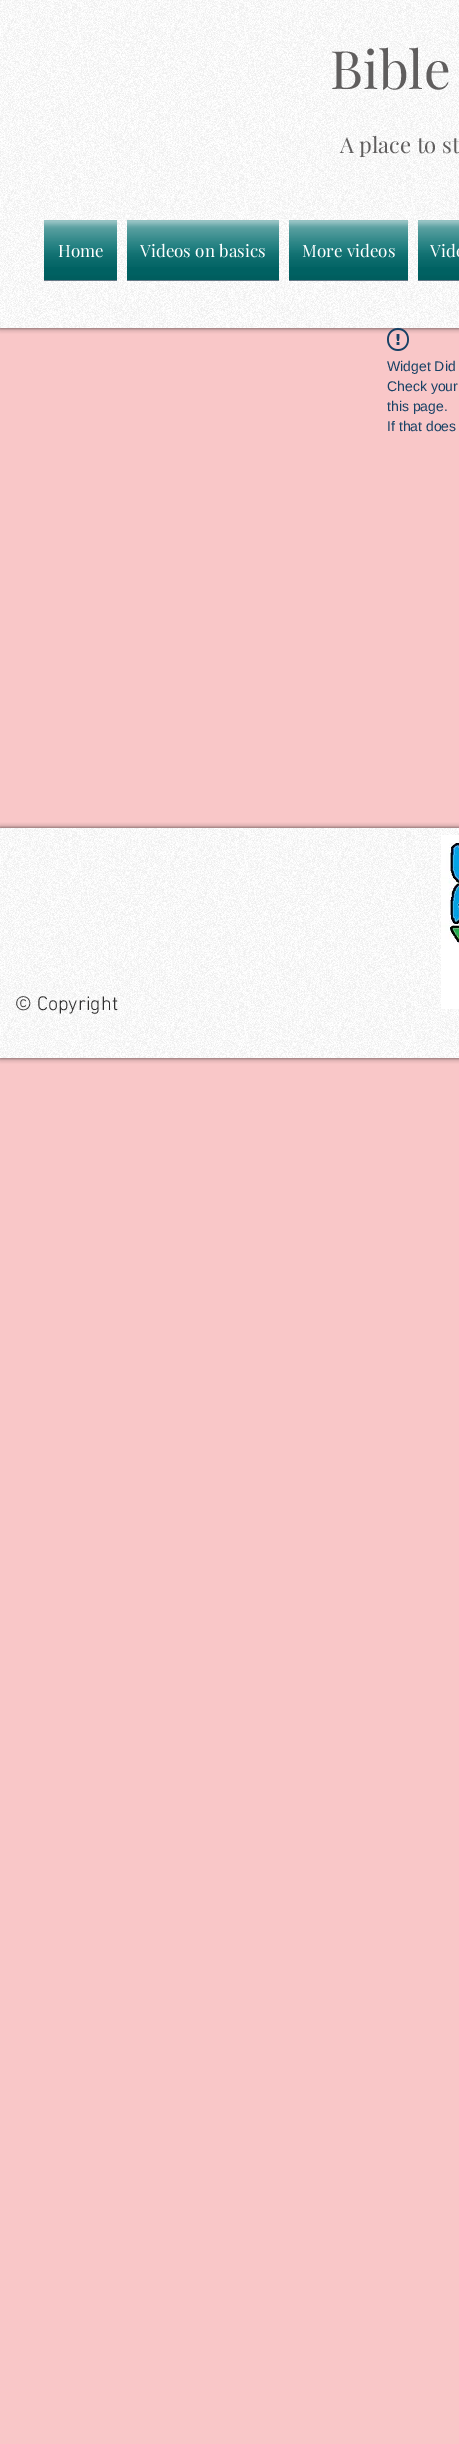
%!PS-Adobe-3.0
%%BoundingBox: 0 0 459 2444
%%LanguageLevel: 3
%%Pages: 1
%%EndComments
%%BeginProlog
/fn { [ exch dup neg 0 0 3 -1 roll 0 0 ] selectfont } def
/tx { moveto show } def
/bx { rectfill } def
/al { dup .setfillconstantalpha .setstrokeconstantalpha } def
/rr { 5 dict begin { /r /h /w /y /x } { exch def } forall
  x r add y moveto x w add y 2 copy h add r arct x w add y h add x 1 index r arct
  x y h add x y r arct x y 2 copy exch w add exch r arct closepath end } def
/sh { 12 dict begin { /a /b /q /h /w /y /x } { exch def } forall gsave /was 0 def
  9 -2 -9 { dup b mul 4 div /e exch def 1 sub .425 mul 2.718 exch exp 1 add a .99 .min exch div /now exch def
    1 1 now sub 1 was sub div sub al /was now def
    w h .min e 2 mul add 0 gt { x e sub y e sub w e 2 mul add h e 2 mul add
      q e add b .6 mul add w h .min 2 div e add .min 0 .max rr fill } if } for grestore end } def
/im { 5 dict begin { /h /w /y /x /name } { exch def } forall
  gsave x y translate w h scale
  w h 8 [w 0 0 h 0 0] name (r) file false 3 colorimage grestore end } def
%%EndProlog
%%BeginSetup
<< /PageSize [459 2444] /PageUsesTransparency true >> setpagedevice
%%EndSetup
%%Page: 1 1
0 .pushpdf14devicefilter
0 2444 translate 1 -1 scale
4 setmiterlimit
0.976 0.78 0.784 setrgbcolor
0 0 459 2444 bx
0 setgray
0 0 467 328 0 2.5 0.7 sh
1 setgray
0 0 459 328 bx
(image0.raw) 0 0 459 328 im
/PlayfairDisplay-Regular 53 fn
0.376 0.369 0.369 setrgbcolor
(Bible) 330 89 tx
/PlayfairDisplay-Regular 22 fn
(A place to st) 340 153 tx
0.6 al
0.008 0.133 0.227 setrgbcolor
44 280 73 1 bx
1 al
0 0.424 0.427 setrgbcolor
44 220 73 60 bx
(image1.raw) 44 220 73 46 im
(image2.raw) 44 250 73 30 im
/PlayfairDisplay-Regular 17 fn
1 setgray
(Home) 58 257 tx
0.6 al
0.008 0.133 0.227 setrgbcolor
127 280 152 1 bx
1 al
0 0.424 0.427 setrgbcolor
127 220 152 60 bx
(image3.raw) 127 220 152 46 im
(image4.raw) 127 250 152 30 im
1 setgray
(Videos on basics) 140 257 tx
0.6 al
0.008 0.133 0.227 setrgbcolor
289 280 119 1 bx
1 al
0 0.424 0.427 setrgbcolor
289 220 119 60 bx
(image5.raw) 289 220 119 46 im
(image6.raw) 289 250 119 30 im
1 setgray
(More videos) 302 257 tx
0.6 al
0.008 0.133 0.227 setrgbcolor
418 280 41 1 bx
1 al
0 0.424 0.427 setrgbcolor
418 220 41 60 bx
(image7.raw) 418 220 41 46 im
(image8.raw) 418 250 41 30 im
1 setgray
(Vide) 430 257 tx
(image9.raw) 387 328 22 23 im
/LiberationSans-Regular 14 fn
0.09 0.255 0.396 setrgbcolor
(Widget Did) 387 371 tx
(Check your) 387 391 tx
(this page.) 387 411 tx
(If that does) 387 431 tx
0 setgray
0 828 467 230 0 2.5 0.7 sh
1 setgray
0 828 459 230 bx
(image10.raw) 0 828 459 230 im
/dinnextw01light-Light 20 fn
0.184 0.18 0.18 setrgbcolor
(© Copyright) 15 1010 tx
(image11.raw) 441 835 18 174 im
.poppdf14devicefilter showpage
%%EOF
